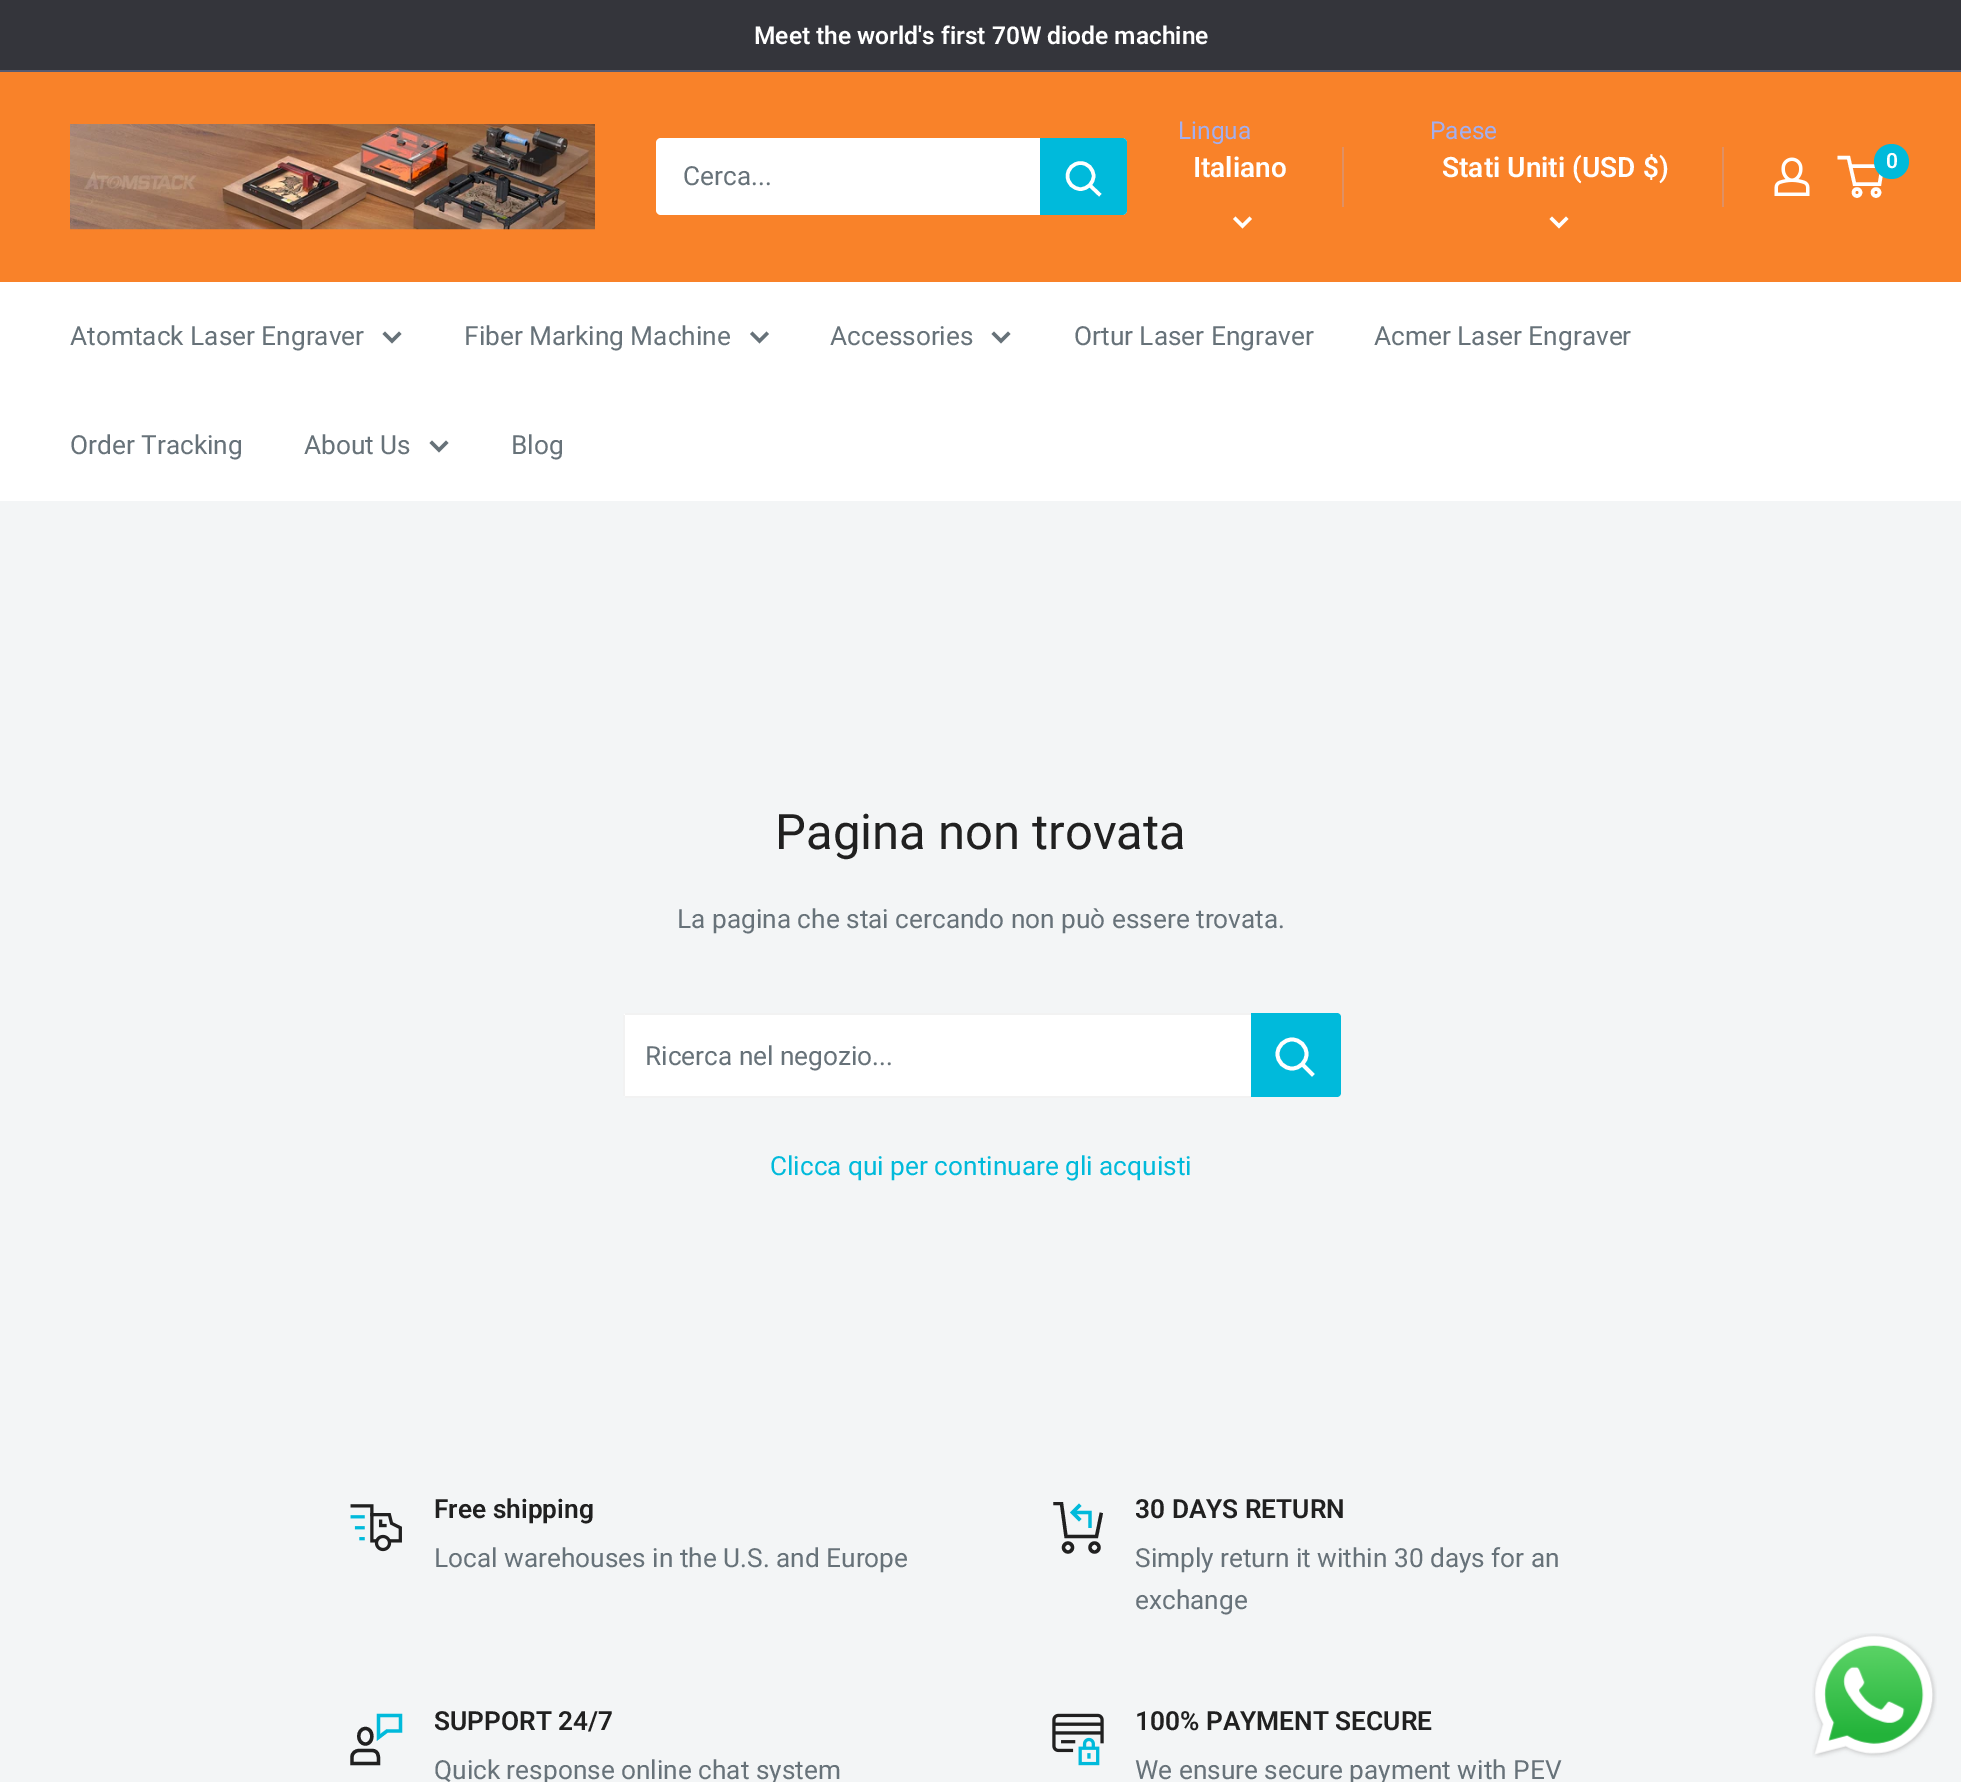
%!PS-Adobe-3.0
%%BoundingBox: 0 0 1961 1782
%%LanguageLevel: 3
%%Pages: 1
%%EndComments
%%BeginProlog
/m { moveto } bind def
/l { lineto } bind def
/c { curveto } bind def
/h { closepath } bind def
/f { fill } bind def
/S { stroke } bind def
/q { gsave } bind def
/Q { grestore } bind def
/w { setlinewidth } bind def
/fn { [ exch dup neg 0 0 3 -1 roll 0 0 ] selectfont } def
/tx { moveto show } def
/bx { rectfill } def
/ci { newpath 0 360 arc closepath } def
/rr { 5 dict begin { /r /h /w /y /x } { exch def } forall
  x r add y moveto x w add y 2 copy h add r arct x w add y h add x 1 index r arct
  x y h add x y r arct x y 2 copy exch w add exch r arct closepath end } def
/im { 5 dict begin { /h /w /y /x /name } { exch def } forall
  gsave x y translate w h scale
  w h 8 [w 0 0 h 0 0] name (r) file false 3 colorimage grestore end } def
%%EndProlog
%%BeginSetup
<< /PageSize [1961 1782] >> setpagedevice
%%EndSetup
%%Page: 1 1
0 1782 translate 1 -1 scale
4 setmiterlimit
0.953 0.961 0.965 setrgbcolor
0 0 1961 1782 bx
0.204 0.208 0.231 setrgbcolor
0 0 1961 70 bx
0.333 0.353 0.443 setrgbcolor
0 70 1961 2 bx
/Roboto-SemiBold 24.5 fn
1 setgray
(Meet the world's first 70W diode machine) 754 44 tx
0.976 0.51 0.161 setrgbcolor
0 72 1961 210 bx
(image0.raw) 70 124 525 106 im
1 setgray
656 138 471 77 5 rr f
/Roboto-Regular 26.25 fn
0.404 0.447 0.475 setrgbcolor
(Cerca...) 683 185 tx
0 0.729 0.859 setrgbcolor
1040 138 m 1122 138 l 1125 138 1127 140 1127 143 c 1127 210 l 1127 213 1125 215 1122 215 c 1040 215 l h f
1 setgray
3.5 w
2 setlinecap
1099 194 m 1090 185.5 l S
0 setlinecap
1080.5 176 13 ci S
/Roboto-Regular 24.5 fn
0.639 0.686 0.937 setrgbcolor
(Lingua) 1178 139 tx
/Roboto-SemiBold 28 fn
1 setgray
(Italiano) 1193 177 tx
2 setlinecap
1249.5 219 m 1242.5 226 l 1235.5 219 l S
0.875 0.565 0.392 setrgbcolor
1342 147 2 60 bx
/Roboto-Regular 24.5 fn
0.639 0.686 0.937 setrgbcolor
(Paese) 1430 139 tx
/Roboto-SemiBold 28 fn
1 setgray
(Stati Uniti \(USD $\)) 1442 177 tx
1566 219 m 1559 226 l 1552 219 l S
0.875 0.565 0.392 setrgbcolor
1722 147 2 60 bx
(image1.raw) 1774 157 36 39 im
1 setgray
0 setlinecap
1857 192.5 3.5 ci S
1876 192.5 3.5 ci S
1850.5 166 m 1882.5 166 l 1879.5 184 l 1854.5 184 l 1848.5 157.5 l 1837.5 157.5 l S
0 0.729 0.859 setrgbcolor
1891.5 161.5 17.5 ci f
/Roboto-SemiBold 21 fn
1 setgray
(0) 1886 168 tx
0 282 1961 219 bx
/Roboto-Regular 26.25 fn
0.404 0.447 0.475 setrgbcolor
(Atomtack Laser Engraver) 70 345 tx
2 setlinecap
399 334 m 392 341 l 385 334 l S
(Fiber Marking Machine) 464 345 tx
766.5 334 m 759.5 341 l 752.5 334 l S
(Accessories) 830 345 tx
1008 334 m 1001 341 l 994 334 l S
(Ortur Laser Engraver) 1074 345 tx
(Acmer Laser Engraver) 1374 345 tx
(Order Tracking) 70 454 tx
(About Us) 304 454 tx
446 443 m 439 450 l 432 443 l S
(Blog) 511 454 tx
/Roboto-Regular 49 fn
0.125 setgray
(Pagina non trovata) 775 849 tx
/Roboto-Regular 26.25 fn
0.404 0.447 0.475 setrgbcolor
(La pagina che stai cercando non può essere trovata.) 677 928 tx
1 setgray
627 1013 m 1251 1013 l 1251 1097 l 627 1097 l 625 1097 623 1095 623 1093 c 623 1017 l 623 1015 625 1013 627 1013 c h f
0.949 setgray
625 1013 626 2 bx
625 1096 626 2 bx
623 1015 2 81 bx
0.404 0.447 0.475 setrgbcolor
(Ricerca nel negozio...) 645 1065 tx
0 0.729 0.859 setrgbcolor
1251 1013 m 1337 1013 l 1339 1013 1341 1015 1341 1017 c 1341 1093 l 1341 1095 1339 1097 1337 1097 c 1251 1097 l h f
1 setgray
3.8 w
1312 1074 m 1302.5 1064.5 l S
0 setlinecap
1292 1054 14.5 ci S
0 0.729 0.859 setrgbcolor
(Clicca qui per continuare gli acquisti) 770 1175 tx
(image2.raw) 350 1504 52 48 im
/Roboto-SemiBold 26.25 fn
0.125 setgray
(Free shipping) 434 1518 tx
/Roboto-Regular 26.25 fn
0.404 0.447 0.475 setrgbcolor
(Local warehouses in the U.S. and Europe) 434 1567 tx
0 0.729 0.859 setrgbcolor
3.3 w
1072.5 1512.5 m 1090 1512.5 l 1090 1528 l S
2 setlinecap
1079 1519 m 1072.5 1512.5 l 1079 1506 l S
q
1052 1502 52 52 rectclip
0.125 setgray
1101 1514.5 m 1096.5 1536.5 l 1066 1536.5 l 1061.5 1503.5 l 1055 1503.5 l S
Q
0.125 setgray
0 setlinecap
1068 1547.5 4.5 ci S
1094.5 1547.5 4.5 ci S
/Roboto-SemiBold 26.25 fn
(30 DAYS RETURN) 1135 1518 tx
/Roboto-Regular 26.25 fn
0.404 0.447 0.475 setrgbcolor
(Simply return it within 30 days for an) 1135 1567 tx
(exchange) 1135 1609 tx
0.125 setgray
2 setlinecap
372 1750.5 m 359 1750.5 l 355 1750.5 352 1753.5 352 1757 c 352 1763.5 l 378.5 1763.5 l 378.5 1758.5 379.5 1750.5 372 1750.5 c h 365.5 1744 m 356.5 1744 356.5 1728.5 365.5 1728.5 c 374 1728.5 374 1744 365.5 1744 c h S
0 0.729 0.859 setrgbcolor
378.5 1715.5 m 378.5 1737.5 l 387 1731 l 400.5 1731 l 400.5 1715.5 l h S
/Roboto-SemiBold 26.25 fn
0.125 setgray
(SUPPORT 24/7) 434 1730 tx
/Roboto-Regular 26.25 fn
0.404 0.447 0.475 setrgbcolor
(Quick response online chat system) 434 1779 tx
(image3.raw) 1052 1713 52 53 im
/Roboto-SemiBold 26.25 fn
0.125 setgray
(100% PAYMENT SECURE) 1135 1730 tx
/Roboto-Regular 26.25 fn
0.404 0.447 0.475 setrgbcolor
(We ensure secure payment with PEV) 1135 1779 tx
(image4.raw) 1812 1633 125 125 im
showpage
%%EOF
